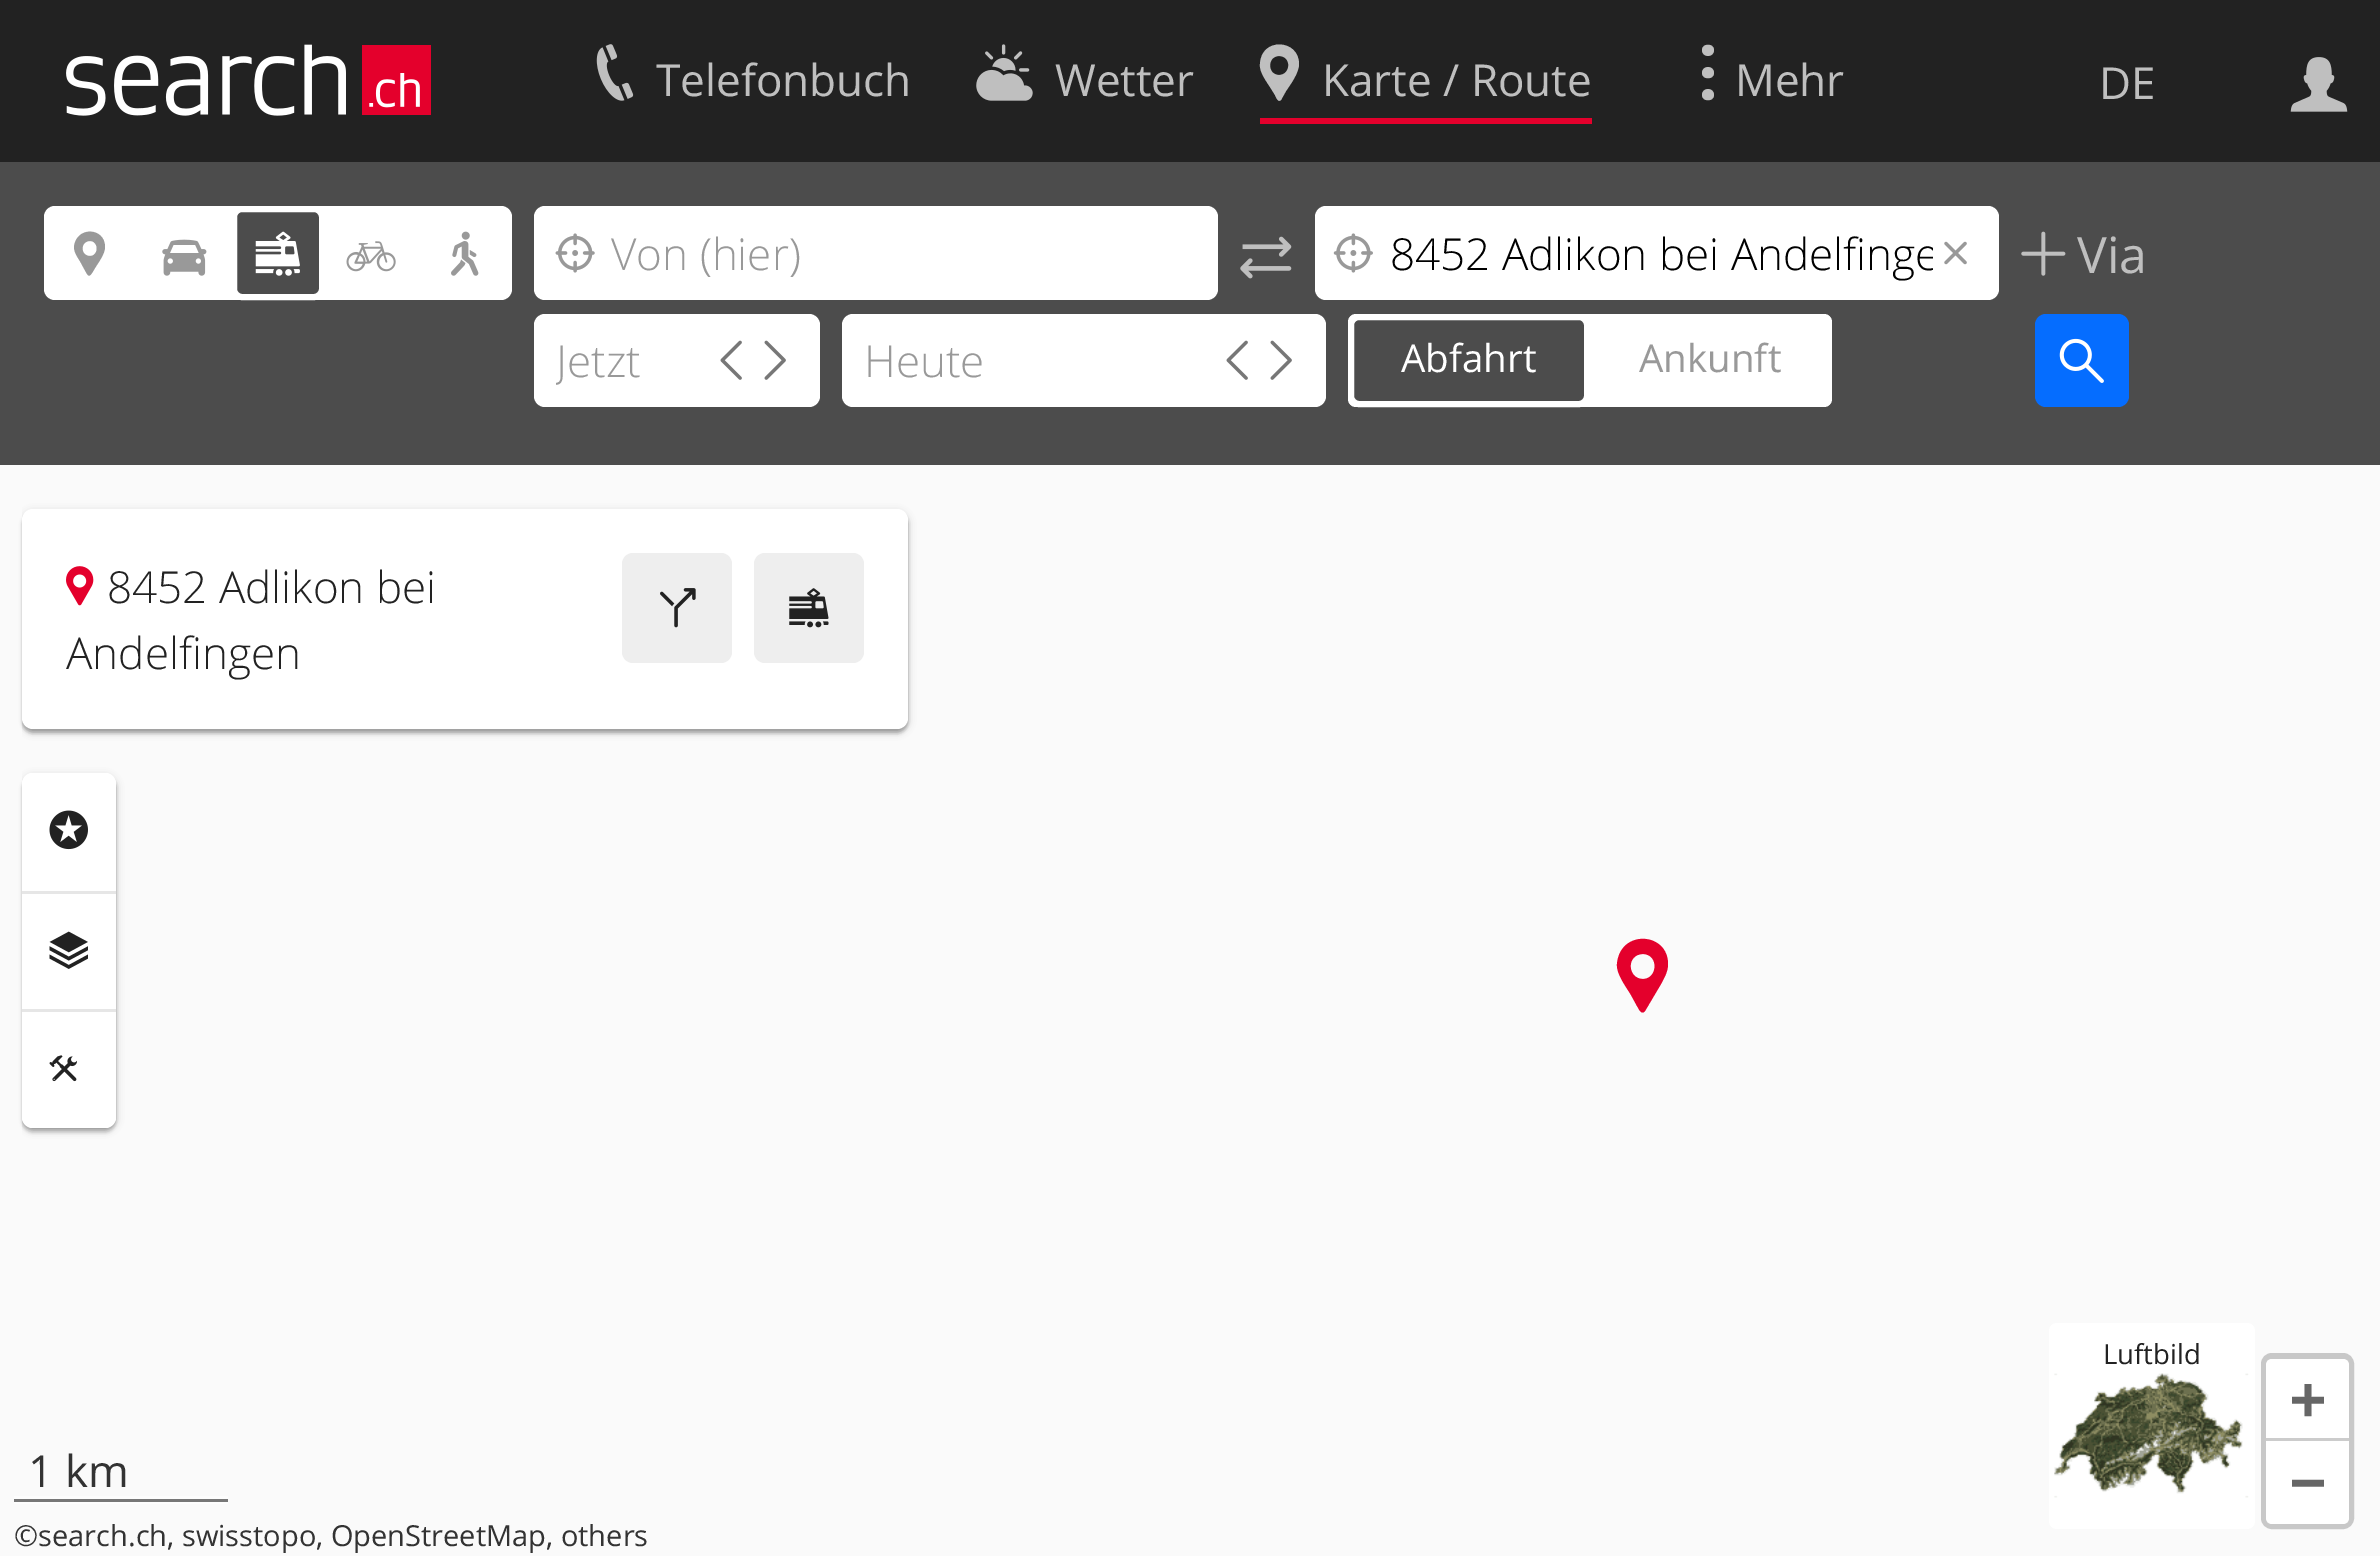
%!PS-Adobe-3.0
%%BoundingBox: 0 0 2380 1556
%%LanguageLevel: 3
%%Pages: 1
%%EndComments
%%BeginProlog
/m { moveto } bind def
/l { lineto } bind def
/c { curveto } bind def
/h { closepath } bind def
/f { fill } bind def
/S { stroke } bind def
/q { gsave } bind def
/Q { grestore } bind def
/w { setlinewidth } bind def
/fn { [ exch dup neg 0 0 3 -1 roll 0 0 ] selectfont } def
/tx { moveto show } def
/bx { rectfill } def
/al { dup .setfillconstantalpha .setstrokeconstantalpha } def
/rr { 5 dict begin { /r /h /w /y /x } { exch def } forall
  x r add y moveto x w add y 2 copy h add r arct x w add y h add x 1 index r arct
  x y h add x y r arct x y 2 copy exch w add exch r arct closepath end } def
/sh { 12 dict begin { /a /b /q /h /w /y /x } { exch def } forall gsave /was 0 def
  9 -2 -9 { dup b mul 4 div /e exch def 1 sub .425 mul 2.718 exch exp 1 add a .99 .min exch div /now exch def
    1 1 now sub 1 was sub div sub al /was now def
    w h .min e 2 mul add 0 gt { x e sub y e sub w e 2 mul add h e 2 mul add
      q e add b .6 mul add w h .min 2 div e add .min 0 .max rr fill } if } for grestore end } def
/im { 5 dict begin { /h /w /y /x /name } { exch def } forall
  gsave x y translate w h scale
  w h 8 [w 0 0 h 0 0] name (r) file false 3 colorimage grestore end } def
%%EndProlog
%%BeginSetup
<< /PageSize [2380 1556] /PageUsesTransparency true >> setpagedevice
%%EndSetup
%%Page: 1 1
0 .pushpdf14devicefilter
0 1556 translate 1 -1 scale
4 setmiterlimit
0.98 setgray
0 0 2380 1556 bx
0.133 setgray
0 0 2380 162 bx
(image0.raw) 66 44 365 72 im
(image1.raw) 596 44 38 57 im
/OpenSans-Regular 44 fn
0.749 setgray
(Telefonbuch) 656 96 tx
(image2.raw) 976 44 57 57 im
(Wetter) 1055 96 tx
0.894 0 0.173 setrgbcolor
1260 118 332 6 bx
0.749 setgray
1299 64 m 1299 39 1261 37 1260 64 c 1259 72 1267 82 1270 87 c 1275 95 l 1276 97 1278 103 1281 100 c 1286 91 l 1290 85 1299 73 1299 64 c h 1279 75 m 1267 75 1267 56 1279 56 c 1292 56 1291 75 1279 75 c h f
(Karte / Route) 1322 96 tx
1702 50 m 1702 58 1714 58 1714 50 c 1714 43 1702 43 1702 50 c h 1702 73 m 1702 80 1714 80 1714 73 c 1714 65 1702 65 1702 73 c h 1702 95 m 1702 102 1714 102 1714 95 c 1714 87 1702 87 1702 95 c h f
(Mehr) 1735 96 tx
(DE) 2099 99 tx
(image3.raw) 2290 57 58 55 im
0.298 setgray
0 162 2380 303 bx
1 setgray
44 206 468 94 11 rr f
0.6 setgray
105 247 m 105 227 76 226 74 247 c 74 254 80 260 82 265 c 89 277 88 280 95 268 c 98 263 105 254 105 247 c h 90 256 m 80 256 80 241 90 241 c 99 241 99 256 90 256 c h f
0.298 setgray
234 209 88 88 8 rr q f Q
1 setgray
6 w
S
(image4.raw) 162 239 45 37 im
(image5.raw) 255 231 45 45 im
(image6.raw) 346 241 50 31 im
(image7.raw) 451 231 28 45 im
534 206 684 94 11 rr f
(image8.raw) 555 233 40 40 im
/OpenSans-Light 44 fn
0.6 setgray
(Von \(hier\)) 611 270 tx
(image9.raw) 1240 236 52 43 im
1 setgray
1315 206 684 94 11 rr f
(image10.raw) 1333 233 40 40 im
q
1392 223 541 60 rectclip
0 setgray
(8452 Adlikon bei Andelfinge) 1390 270 tx
Q
(image11.raw) 1944 241 23 24 im
(image12.raw) 2021 231 45 45 im
/OpenSans-Regular 50 fn
0.749 setgray
(Via) 2077 273 tx
1 setgray
534 314 286 93 11 rr f
q
556 330 242 61 rectclip
/OpenSans-Light 44 fn
0.6 setgray
(Jetzt) 556 377 tx
Q
(image13.raw) 720 340 22 40 im
(image14.raw) 764 340 22 40 im
842 314 484 93 11 rr f
/OpenSans-Light 44 fn
0.6 setgray
(Heute) 864 377 tx
(image13.raw) 1226 340 22 40 im
(image14.raw) 1270 340 22 40 im
1 setgray
1348 314 484 93 8 rr f
0.298 setgray
1351 317 236 87 8 rr q f Q
1 setgray
S
/OpenSans-Regular 38.5 fn
(Abfahrt) 1401 372 tx
0.6 setgray
(Ankunft) 1639 372 tx
0.02 0.427 1 setrgbcolor
2035 314 94 93 11 rr f
(image15.raw) 2059 338 45 45 im
q
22 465 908 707 rectclip
0 setgray
22 512 886 220 11 4 0.2 sh
Q
q
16 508 m 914 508 l 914 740 l 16 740 l h 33 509 m 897 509 l 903 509 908 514 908 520 c 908 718 l 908 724 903 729 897 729 c 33 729 l 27 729 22 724 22 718 c 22 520 l 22 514 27 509 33 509 c h eoclip newpath
0 setgray
22 514 886 220 11 1.5 0.12 sh
Q
q
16 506 m 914 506 l 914 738 l 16 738 l h 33 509 m 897 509 l 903 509 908 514 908 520 c 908 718 l 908 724 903 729 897 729 c 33 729 l 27 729 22 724 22 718 c 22 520 l 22 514 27 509 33 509 c h eoclip newpath
0 setgray
22 512 886 220 11 1.5 0.14 sh
Q
1 setgray
22 509 886 220 11 rr f
(image16.raw) 66 566 28 40 im
/OpenSans-Light 44 fn
0.133 setgray
(8452 Adlikon bei) 107 603 tx
(Andelfingen) 66 669 tx
0.933 setgray
622 553 110 110 11 rr f
(image17.raw) 660 588 36 40 im
754 553 110 110 11 rr f
(image18.raw) 789 588 40 40 im
q
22 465 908 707 rectclip
0 setgray
22 776 94 354 11 4 0.2 sh
Q
q
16 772 m 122 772 l 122 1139 l 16 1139 l h 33 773 m 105 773 l 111 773 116 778 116 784 c 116 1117 l 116 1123 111 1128 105 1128 c 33 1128 l 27 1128 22 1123 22 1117 c 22 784 l 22 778 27 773 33 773 c h eoclip newpath
0 setgray
22 778 94 355 11 1.5 0.12 sh
Q
q
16 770 m 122 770 l 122 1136 l 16 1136 l h 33 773 m 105 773 l 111 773 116 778 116 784 c 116 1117 l 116 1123 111 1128 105 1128 c 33 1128 l 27 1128 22 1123 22 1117 c 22 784 l 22 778 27 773 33 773 c h eoclip newpath
0 setgray
22 776 94 354 11 1.5 0.14 sh
Q
1 setgray
22 773 94 355 11 rr f
33 773 m 105 773 l 111 773 116 778 116 784 c 116 894 l 22 894 l 22 784 l 22 778 27 773 33 773 c h f
0.902 setgray
22 891 94 3 bx
(image19.raw) 49 810 39 40 im
22 1009 94 3 bx
(image20.raw) 49 931 39 38 im
1 setgray
22 1012 m 116 1012 l 116 1117 l 116 1123 111 1128 105 1128 c 33 1128 l 27 1128 22 1123 22 1117 c h f
(image21.raw) 49 1055 28 27 im
2049 1323 206 206 8 rr f
(image22.raw) 2054 1373 195 125 im
/OpenSans-Regular 27.5 fn
0.133 setgray
(Luftbild) 2103 1364 tx
0.894 0 0.173 setrgbcolor
1668 964 m 1668 932 1620 929 1617 964 c 1616 974 1627 988 1631 995 c 1637 1006 l 1638 1007 1641 1016 1645 1011 c 1661 984 l 1664 978 1668 972 1668 964 c h 1643 979 m 1627 979 1626 954 1643 954 c 1659 954 1658 979 1643 979 c h f
0.784 setgray
2264 1356 87 170 8 rr S
1 setgray
2272 1359 m 2343 1359 l 2346.5 1359 2349 1361.5 2349 1365 c 2349 1441 l 2266 1441 l 2266 1365 l 2266 1361.5 2268.5 1359 2272 1359 c h f
0.8 setgray
2266 1438 83 3 bx
/DejaVuSansMono-Bold 60 fn
0.4 setgray
(+) 2290 1419 tx
1 setgray
2266 1441 m 2349 1441 l 2349 1518 l 2349 1521.5 2346.5 1524 2343 1524 c 2272 1524 l 2268.5 1524 2266 1521.5 2266 1518 c h f
0.4 setgray
(−) 2290 1502 tx
0.992 setgray
14 1502 214 2 bx
14 1496 214 3 bx
0.467 setgray
14 1499 214 3 bx
/OpenSans-Regular 44 fn
0.2 setgray
(1 km) 28 1487 tx
/OpenSans-Regular 29 fn
(©search.ch, swisstopo, OpenStreetMap, others) 14 1546 tx
.poppdf14devicefilter showpage
%%EOF
